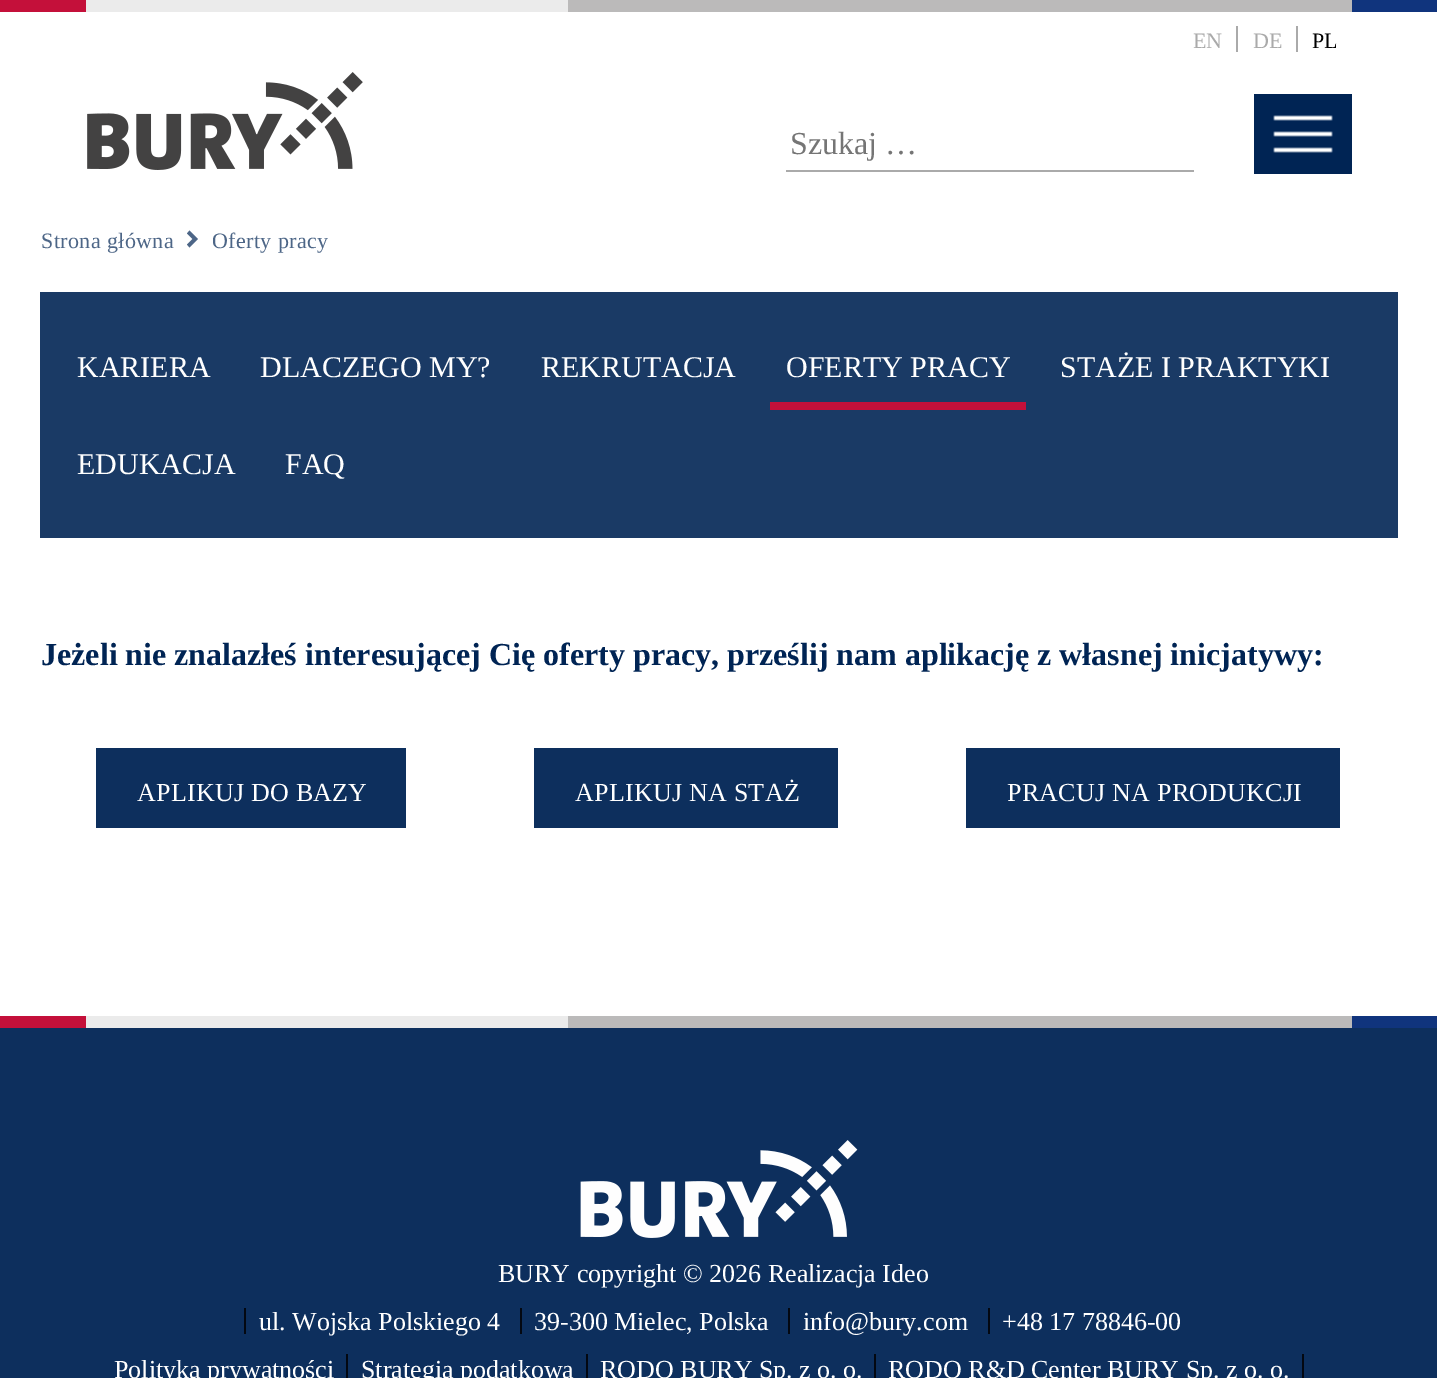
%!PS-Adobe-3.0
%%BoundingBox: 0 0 1437 1378
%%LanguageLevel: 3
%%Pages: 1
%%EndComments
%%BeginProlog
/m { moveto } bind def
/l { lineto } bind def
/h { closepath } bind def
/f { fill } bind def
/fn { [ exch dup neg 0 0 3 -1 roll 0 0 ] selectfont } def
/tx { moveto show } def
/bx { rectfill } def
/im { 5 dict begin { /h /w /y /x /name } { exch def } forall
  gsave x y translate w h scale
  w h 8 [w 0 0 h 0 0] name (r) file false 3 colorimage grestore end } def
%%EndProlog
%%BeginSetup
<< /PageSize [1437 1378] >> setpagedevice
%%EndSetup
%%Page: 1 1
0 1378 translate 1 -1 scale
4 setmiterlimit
1 setgray
0 0 1437 1378 bx
0.769 0.063 0.227 setrgbcolor
0 0 86 12 bx
0.922 setgray
86 0 482 12 bx
0.733 0.729 0.729 setrgbcolor
568 0 784 12 bx
0.063 0.204 0.49 setrgbcolor
1352 0 85 12 bx
/LiberationSerif-Regular 22 fn
0.667 setgray
(EN) 1193 48 tx
1236 26 2 26 bx
(DE) 1253 48 tx
1296 26 2 26 bx
0 setgray
(PL) 1312 48 tx
(image0.raw) 87 72 276 98 im
0.667 setgray
786 170 408 2 bx
/LiberationSerif-Regular 32 fn
0.459 setgray
(Szukaj …) 790 154 tx
0 0.141 0.329 setrgbcolor
1254 94 98 80 bx
(image1.raw) 1273 115 60 38 im
/LiberationSerif-Regular 22 fn
0.302 0.4 0.529 setrgbcolor
41 248 m 0.4 0 (Strona główna) ashow
189.5 230.5 m 198 239 l 192.5 239 l 187 233.5 l h 198 239 m 189.5 247.5 l 187 244.5 l 192.5 239 l h f
212 248 m 0.4 0 (Oferty pracy) ashow
0.102 0.227 0.396 setrgbcolor
40 292 1358 246 bx
/LiberationSerif-Regular 30 fn
1 setgray
(KARIERA) 77 377 tx
(DLACZEGO MY?) 260 377 tx
(REKRUTACJA) 541 377 tx
(OFERTY PRACY) 786 377 tx
0.769 0.063 0.227 setrgbcolor
770 402 256 8 bx
1 setgray
(STAŻE I PRAKTYKI) 1060 377 tx
(EDUKACJA) 77 474 tx
(FAQ) 285 474 tx
/LiberationSerif-Bold 32 fn
0 0.141 0.329 setrgbcolor
(Jeżeli nie znalazłeś interesującej Cię oferty pracy, prześlij nam aplikację z własnej inicjatywy:) 41 665 tx
0.051 0.184 0.365 setrgbcolor
96 748 310 80 bx
/LiberationSerif-Regular 26 fn
1 setgray
137 801 m 0.25 0 (APLIKUJ DO BAZY) ashow
0.051 0.184 0.365 setrgbcolor
534 748 304 80 bx
1 setgray
575 801 m 0.25 0 (APLIKUJ NA STAŻ) ashow
0.051 0.184 0.365 setrgbcolor
966 748 374 80 bx
1 setgray
1007 801 m 0.25 0 (PRACUJ NA PRODUKCJI) ashow
0.769 0.063 0.227 setrgbcolor
0 1016 86 12 bx
0.922 setgray
86 1016 482 12 bx
0.733 0.729 0.729 setrgbcolor
568 1016 784 12 bx
0.063 0.204 0.49 setrgbcolor
1352 1016 85 12 bx
0.051 0.184 0.365 setrgbcolor
0 1028 1437 350 bx
(image2.raw) 580 1140 278 98 im
1 setgray
(BURY copyright © 2026 Realizacja Ideo) 498 1282 tx
0.012 0.031 0.067 setrgbcolor
244 1308 2 26 bx
1 setgray
(ul. Wojska Polskiego 4) 259 1330 tx
0.012 0.031 0.067 setrgbcolor
520 1308 2 26 bx
1 setgray
(39-300 Mielec, Polska) 534 1330 tx
0.012 0.031 0.067 setrgbcolor
788 1308 2 26 bx
1 setgray
(info@bury.com) 803 1330 tx
0.012 0.031 0.067 setrgbcolor
988 1308 2 26 bx
1 setgray
(+48 17 78846-00) 1002 1330 tx
0.012 0.031 0.067 setrgbcolor
346 1354 2 24 bx
1 setgray
(Polityka prywatności) 114 1378 tx
0.012 0.031 0.067 setrgbcolor
586 1354 2 24 bx
1 setgray
(Strategia podatkowa) 361 1378 tx
0.012 0.031 0.067 setrgbcolor
874 1354 2 24 bx
1 setgray
(RODO BURY Sp. z o. o.) 600 1378 tx
0.012 0.031 0.067 setrgbcolor
1302 1354 2 24 bx
1 setgray
(RODO R&D Center BURY Sp. z o. o.) 888 1378 tx
showpage
%%EOF
